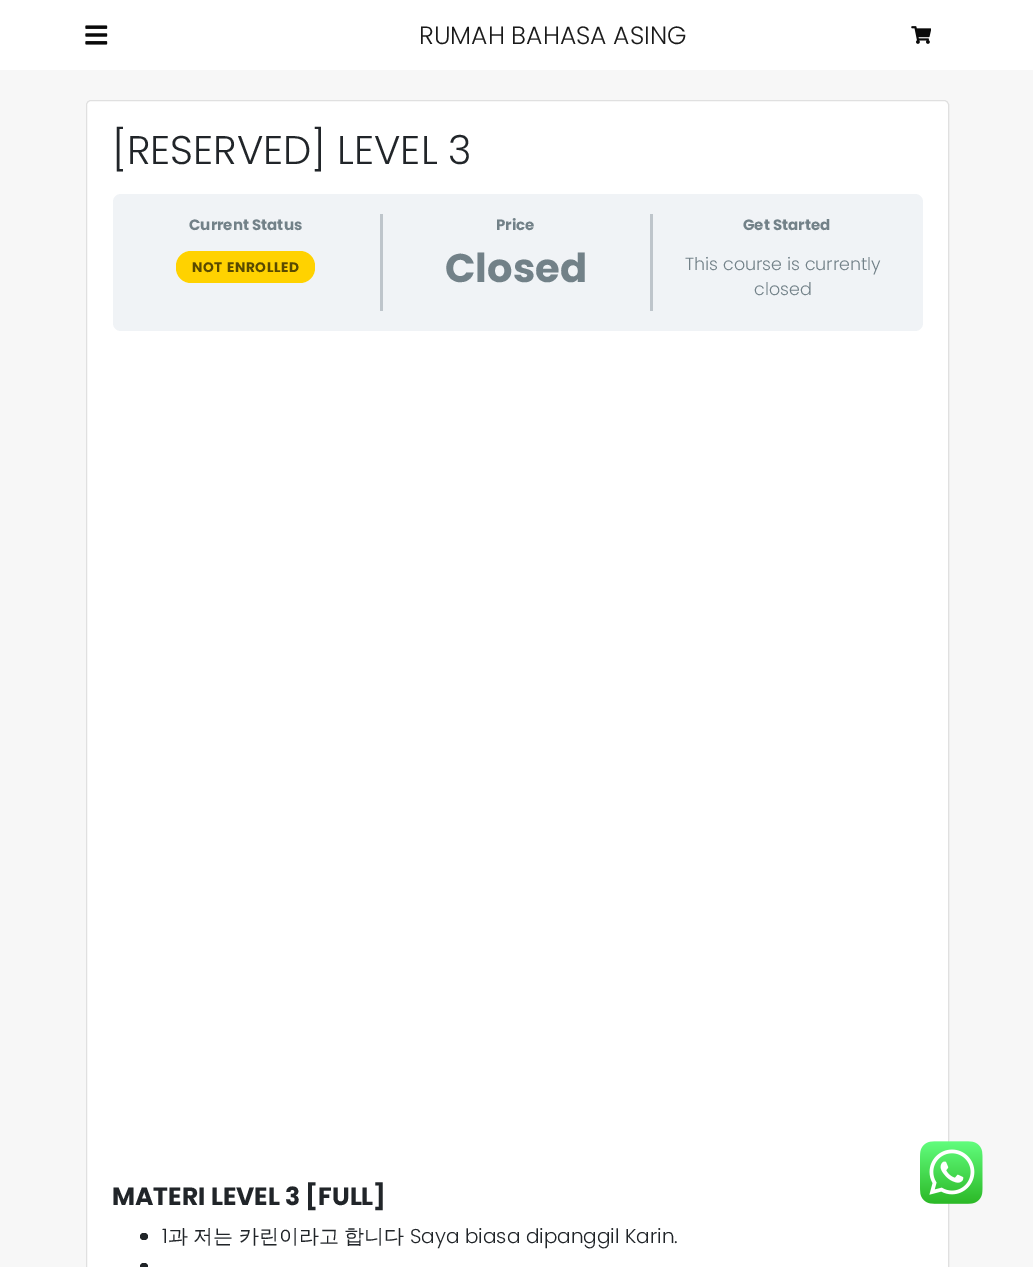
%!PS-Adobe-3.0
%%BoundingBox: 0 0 1033 1267
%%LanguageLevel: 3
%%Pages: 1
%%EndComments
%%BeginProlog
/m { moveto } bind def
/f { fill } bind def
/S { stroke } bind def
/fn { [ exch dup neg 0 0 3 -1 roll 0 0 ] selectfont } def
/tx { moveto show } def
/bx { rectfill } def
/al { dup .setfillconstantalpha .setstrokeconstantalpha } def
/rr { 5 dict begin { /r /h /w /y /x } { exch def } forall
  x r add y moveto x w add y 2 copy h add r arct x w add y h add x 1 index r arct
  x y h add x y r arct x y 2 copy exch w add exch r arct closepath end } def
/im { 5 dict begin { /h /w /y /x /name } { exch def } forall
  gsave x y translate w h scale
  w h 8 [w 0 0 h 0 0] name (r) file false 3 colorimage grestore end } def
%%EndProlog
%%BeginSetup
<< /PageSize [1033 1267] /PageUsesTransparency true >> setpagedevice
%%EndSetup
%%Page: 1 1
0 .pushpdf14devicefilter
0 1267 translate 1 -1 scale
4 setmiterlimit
0.969 setgray
0 0 1033 1267 bx
1 setgray
0 0 1033 70 bx
(image0.raw) 85 25 23 20 im
/Poppins-Light 25 fn
0.102 setgray
(RUMAH BAHASA ASING) 419 44 tx
(image1.raw) 911 26 20 18 im
1 setgray
86 100 863 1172 5 rr f
0.12 al
0 setgray
86.5 100.5 862 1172 4.5 rr S
/Poppins-Light 40 fn
1 al
0.129 0.145 0.161 setrgbcolor
([RESERVED] LEVEL 3) 112 164 tx
0.941 0.953 0.965 setrgbcolor
113 194 810 137 8 rr f
0.745 0.773 0.796 setrgbcolor
380 214 3 97 bx
/Poppins-Bold 15 fn
0.447 0.506 0.533 setrgbcolor
(Current Status) 189 230 tx
1 0.824 0 setrgbcolor
176 251 139 32 15 rr f
/Poppins-Bold 13.75 fn
0.349 0.29 0 setrgbcolor
192 272 m 0.6 0 (NOT ENROLLED) ashow
0.745 0.773 0.796 setrgbcolor
650 214 3 97 bx
/Poppins-Bold 15 fn
0.447 0.506 0.533 setrgbcolor
(Price) 496 230 tx
/Poppins-Bold 40 fn
(Closed) 445 282 tx
/Poppins-Bold 15 fn
(Get Started) 743 230 tx
/Poppins-Light 17.5 fn
(This course is currently) 685 270 tx
(closed) 754 295 tx
/Poppins-Bold 25 fn
0.129 0.145 0.161 setrgbcolor
(MATERI LEVEL 3 [FULL]) 112 1205 tx
140 1233 8 7 3.5 rr f
/Poppins-Light 20 fn
(1) 162 1243 tx
/WenQuanYiZenHei-Medium 20 fn
(과) 168 1243 tx
(저는) 193 1243 tx
(카린이라고) 239 1243 tx
(합니다) 344 1243 tx
/Poppins-Light 20 fn
(Saya biasa dipanggil Karin.) 410 1243 tx
140 1263 8 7 3.5 rr f
(image2.raw) 920 1141 63 63 im
.poppdf14devicefilter showpage
%%EOF
